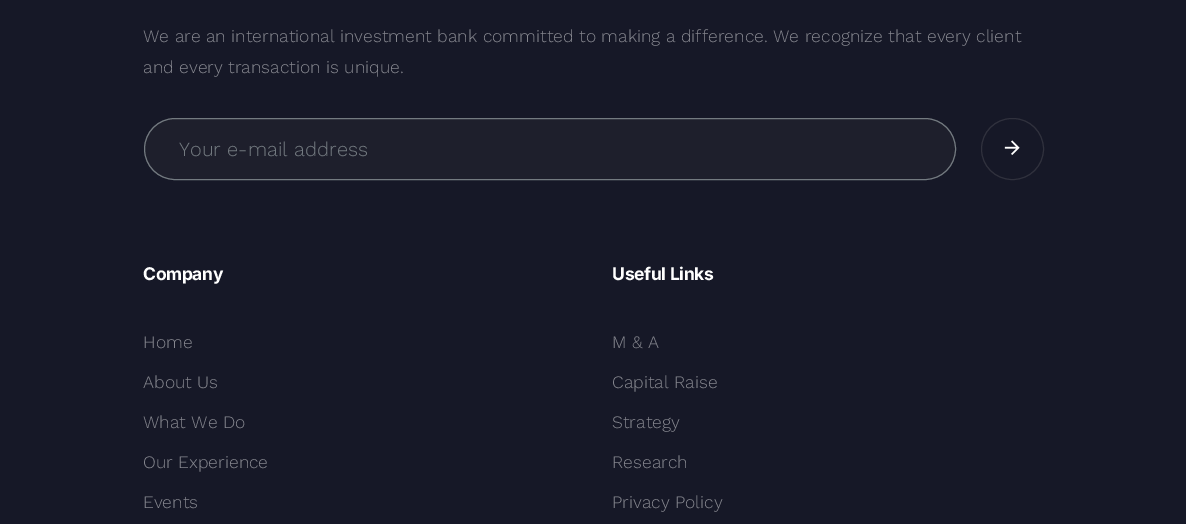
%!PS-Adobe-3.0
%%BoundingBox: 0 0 1186 524
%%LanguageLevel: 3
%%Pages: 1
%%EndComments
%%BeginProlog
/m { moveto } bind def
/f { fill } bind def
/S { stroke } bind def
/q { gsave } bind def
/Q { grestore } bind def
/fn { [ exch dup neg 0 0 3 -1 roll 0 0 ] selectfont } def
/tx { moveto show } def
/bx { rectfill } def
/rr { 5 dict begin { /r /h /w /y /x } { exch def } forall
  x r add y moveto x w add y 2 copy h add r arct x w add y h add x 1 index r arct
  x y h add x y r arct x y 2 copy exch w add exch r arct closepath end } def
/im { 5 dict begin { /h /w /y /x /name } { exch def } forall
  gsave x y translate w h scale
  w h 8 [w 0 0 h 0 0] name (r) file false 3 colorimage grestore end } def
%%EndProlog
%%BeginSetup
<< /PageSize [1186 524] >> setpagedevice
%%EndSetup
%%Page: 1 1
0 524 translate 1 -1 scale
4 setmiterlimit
0.086 0.094 0.153 setrgbcolor
0 0 1186 524 bx
/WorkSans-Light 17.5 fn
0.525 0.529 0.561 setrgbcolor
(We are an international investment bank committed to making a difference. We recognize that every client) 143 42 tx
(and every transaction is unique.) 143 73 tx
0.118 0.122 0.173 setrgbcolor
144.5 118.5 811 61 30.5 rr q f Q
0.451 0.478 0.502 setrgbcolor
S
/WorkSans-Light 20 fn
(Your e-mail address) 179 156 tx
0.188 0.192 0.239 setrgbcolor
981.5 118.5 62 61 30.5 rr S
(image0.raw) 1004 140 16 15 im
/Inter-Bold 17.5 fn
1 setgray
143 280 m -0.3 0 (Company) ashow
/WorkSans-Light 17.5 fn
0.525 0.529 0.561 setrgbcolor
(Home) 143 348 tx
(About Us) 143 388 tx
(What We Do) 143 428 tx
(Our Experience) 143 468 tx
(Events) 143 508 tx
/Inter-Bold 17.5 fn
1 setgray
612 280 m -0.3 0 (Useful Links) ashow
/WorkSans-Light 17.5 fn
0.525 0.529 0.561 setrgbcolor
(M & A) 612 348 tx
(Capital Raise) 612 388 tx
(Strategy) 612 428 tx
(Research) 612 468 tx
(Privacy Policy) 612 508 tx
showpage
%%EOF
